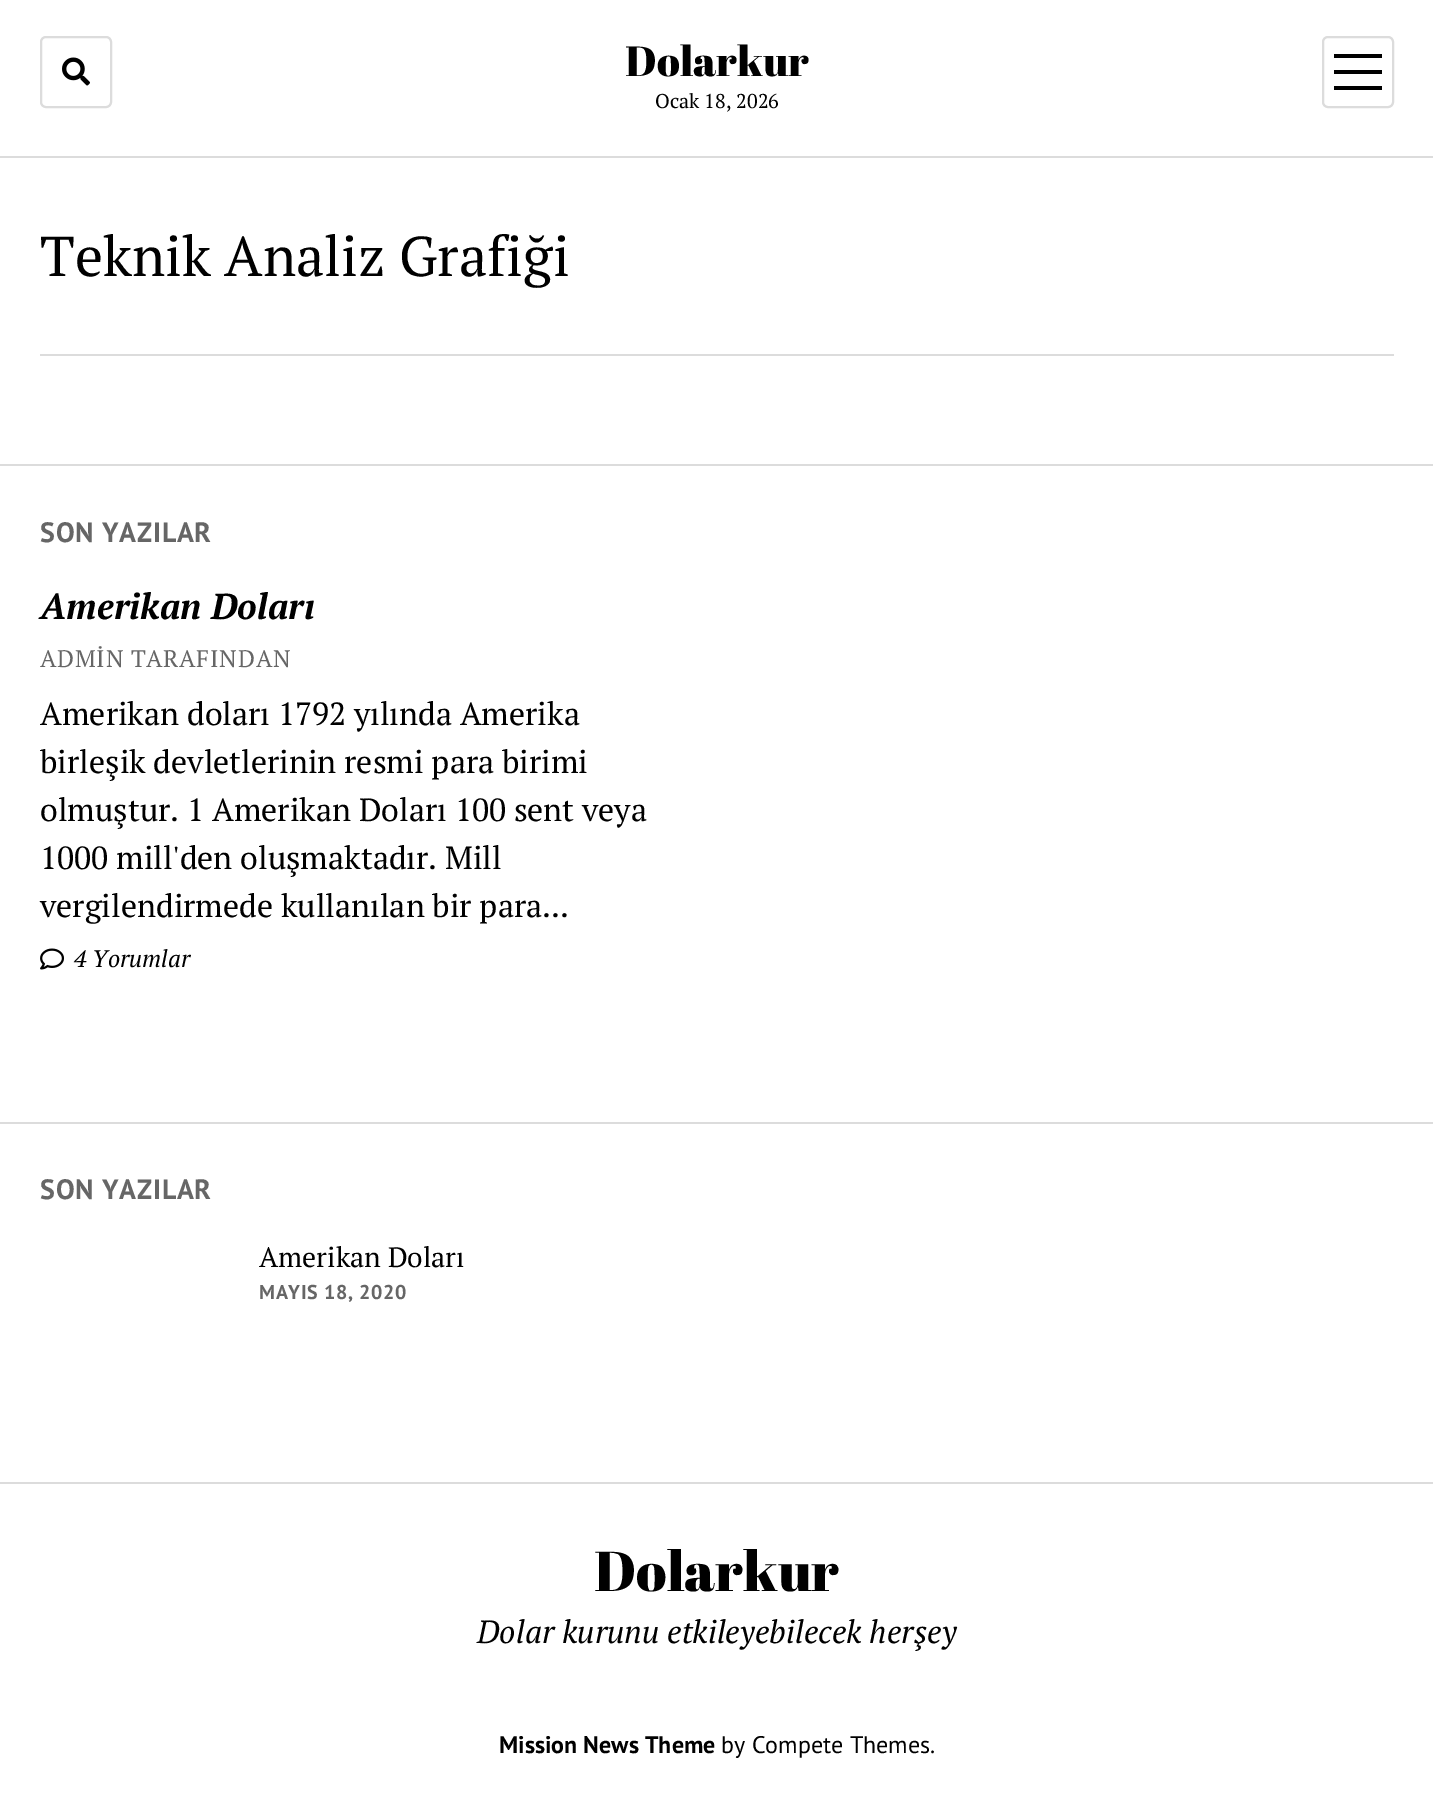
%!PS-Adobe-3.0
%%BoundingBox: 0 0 1433 1814
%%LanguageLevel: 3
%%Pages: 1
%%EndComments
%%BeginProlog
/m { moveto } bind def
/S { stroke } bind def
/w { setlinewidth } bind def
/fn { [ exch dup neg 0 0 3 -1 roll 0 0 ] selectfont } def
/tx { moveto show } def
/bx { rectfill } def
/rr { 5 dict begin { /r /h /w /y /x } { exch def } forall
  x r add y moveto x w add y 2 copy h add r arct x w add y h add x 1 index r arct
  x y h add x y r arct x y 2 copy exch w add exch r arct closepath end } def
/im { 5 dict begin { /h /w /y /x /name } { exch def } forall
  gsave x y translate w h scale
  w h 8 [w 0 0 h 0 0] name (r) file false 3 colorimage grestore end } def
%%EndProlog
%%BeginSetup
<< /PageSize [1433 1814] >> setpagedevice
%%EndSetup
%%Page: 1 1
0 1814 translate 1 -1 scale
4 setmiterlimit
1 setgray
0 0 1433 1814 bx
0.863 setgray
0 156 1433 2 bx
2 w
41 37 70 70 5 rr S
(image0.raw) 62 57 28 29 im
/AbrilFatface-Regular 42 fn
0 setgray
(Dolarkur) 625 76 tx
/PTSerif-Regular 20 fn
(Ocak 18, 2026) 655 108 tx
0.863 setgray
1323 37 70 70 5 rr S
0 setgray
1334 54 48 4 bx
1334 70 48 4 bx
1334 86 48 4 bx
0.863 setgray
40 354 1354 2 bx
/PTSerif-Regular 56 fn
0 setgray
(Teknik Analiz Grafiği) 40 276 tx
0.863 setgray
0 464 1433 2 bx
/PTSans-Bold 28 fn
0.4 setgray
40 542 m 0.75 0 (SON YAZILAR) ashow
/PTSerif-BoldItalic 36 fn
0 setgray
(Amerikan Doları) 40 619 tx
/PTSerif-Regular 24 fn
0.4 setgray
40 667 m 0.75 0 (ADMİN TARAFINDAN) ashow
/PTSerif-Regular 32 fn
0 setgray
(Amerikan doları 1792 yılında Amerika) 40 725 tx
(birleşik devletlerinin resmi para birimi) 40 773 tx
(olmuştur. 1 Amerikan Doları 100 sent veya) 40 821 tx
(1000 mill'den oluşmaktadır. Mill) 40 869 tx
(vergilendirmede kullanılan bir para...) 40 917 tx
(image1.raw) 40 948 24 22 im
/PTSerif-Italic 24 fn
(4 Yorumlar) 74 967 tx
0.863 setgray
0 1122 1433 2 bx
/PTSans-Bold 28 fn
0.4 setgray
40 1199 m 0.75 0 (SON YAZILAR) ashow
/PTSerif-Regular 28 fn
0 setgray
(Amerikan Doları) 259 1267 tx
/PTSans-Bold 20 fn
0.4 setgray
259 1299 m 0.6 0 (MAYIS 18, 2020) ashow
0.863 setgray
0 1482 1433 2 bx
/AbrilFatface-Regular 56 fn
0 setgray
(Dolarkur) 594 1591 tx
/PTSerif-Italic 32 fn
(Dolar kurunu etkileyebilecek herşey) 477 1643 tx
/PTSans-Bold 24 fn
(Mission News Theme) 499 1753 tx
/PTSans-Regular 24 fn
(by Compete Themes.) 721 1753 tx
showpage
%%EOF
